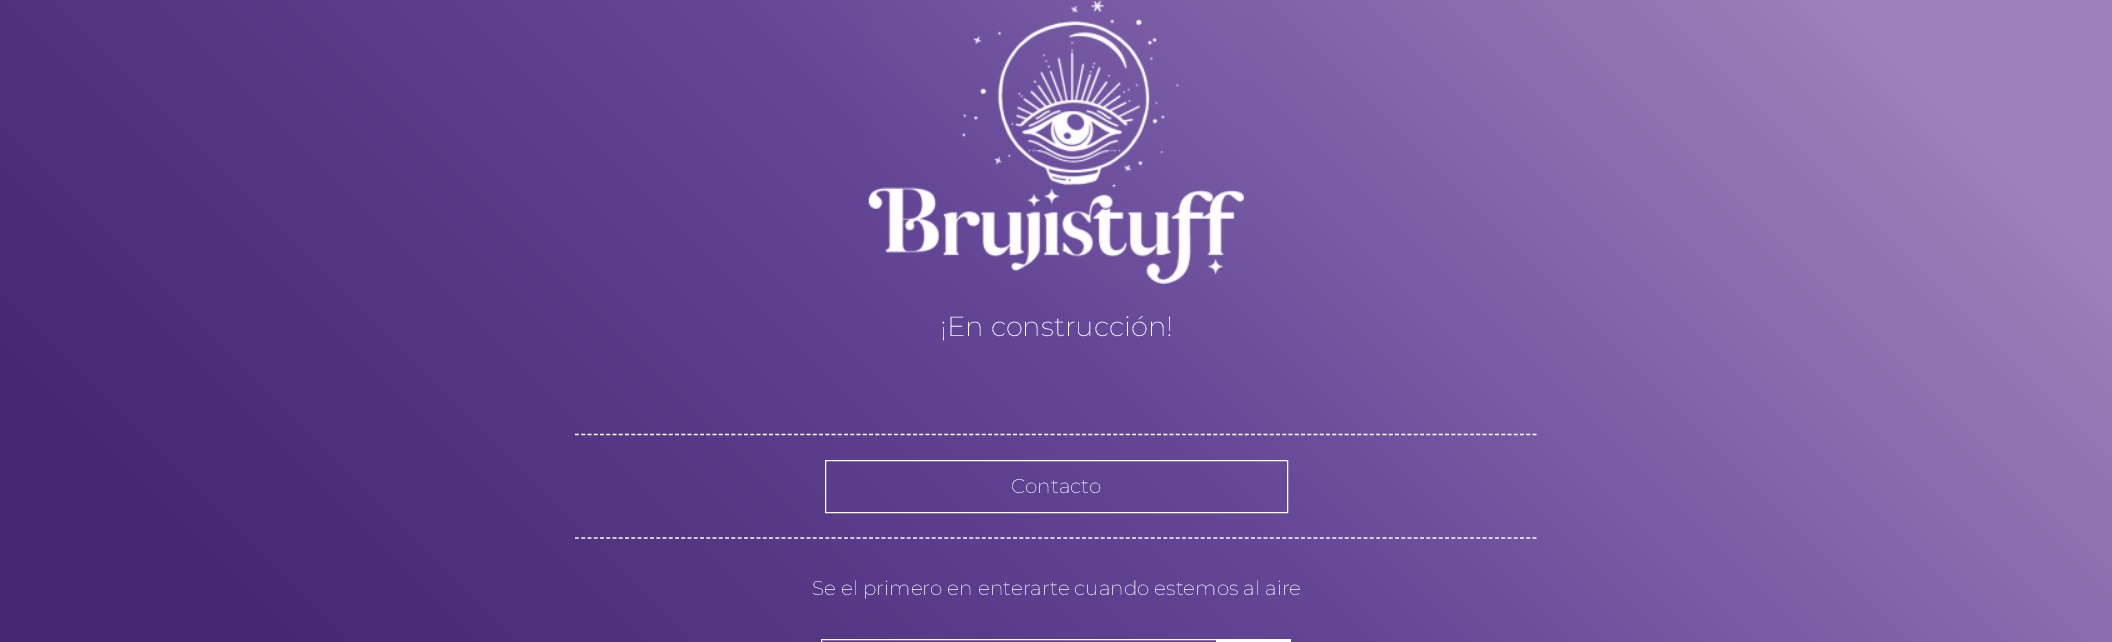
%!PS-Adobe-3.0
%%BoundingBox: 0 0 2112 642
%%LanguageLevel: 3
%%Pages: 1
%%EndComments
%%BeginProlog
/m { moveto } bind def
/l { lineto } bind def
/h { closepath } bind def
/S { stroke } bind def
/q { gsave } bind def
/Q { grestore } bind def
/w { setlinewidth } bind def
/fn { [ exch dup neg 0 0 3 -1 roll 0 0 ] selectfont } def
/tx { moveto show } def
/bx { rectfill } def
/im { 5 dict begin { /h /w /y /x /name } { exch def } forall
  gsave x y translate w h scale
  w h 8 [w 0 0 h 0 0] name (r) file false 3 colorimage grestore end } def
%%EndProlog
%%BeginSetup
<< /PageSize [2112 642] >> setpagedevice
%%EndSetup
%%Page: 1 1
0 642 translate 1 -1 scale
4 setmiterlimit
1 setgray
0 0 2112 642 bx
q 0 0 m 2112 0 l 2112 642 l 0 642 l h clip newpath
<< /ShadingType 2 /ColorSpace /DeviceRGB /Coords [368 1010 1745 -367] /Extend [true true] /Function << /FunctionType 3 /Domain [0 1] /Functions [<< /FunctionType 2 /Domain [0 1] /C0 [0.271 0.153 0.455] /C1 [0.271 0.153 0.455] /N 1 >> << /FunctionType 2 /Domain [0 1] /C0 [0.271 0.153 0.455] /C1 [0.392 0.278 0.592] /N 1 >> << /FunctionType 2 /Domain [0 1] /C0 [0.392 0.278 0.592] /C1 [0.612 0.506 0.729] /N 1 >> << /FunctionType 2 /Domain [0 1] /C0 [0.612 0.506 0.729] /C1 [0.612 0.506 0.729] /N 1 >>] /Bounds [0.1 0.5 0.9] /Encode [0 1 0 1 0 1 0 1] >> >> shfill Q
(image0.raw) 868 0 376 284 im
/Montserrat-ExtraLight 27.5 fn
(¡En construcción!) 940 336 tx
1.2 w
[3.75 2.51] 0 setdash
575 434.5 m 1537.5 434.5 l S
575 538 m 1537.5 538 l S
1 w
[] 0 setdash
825.5 460.5 462 52 rectstroke
/Montserrat-ExtraLight 20 fn
(Contacto) 1011 493 tx
(Se el primero en enterarte cuando estemos al aire) 812 595 tx
821.5 639.5 402 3 rectstroke
1216 639 75 3 bx
showpage
%%EOF
